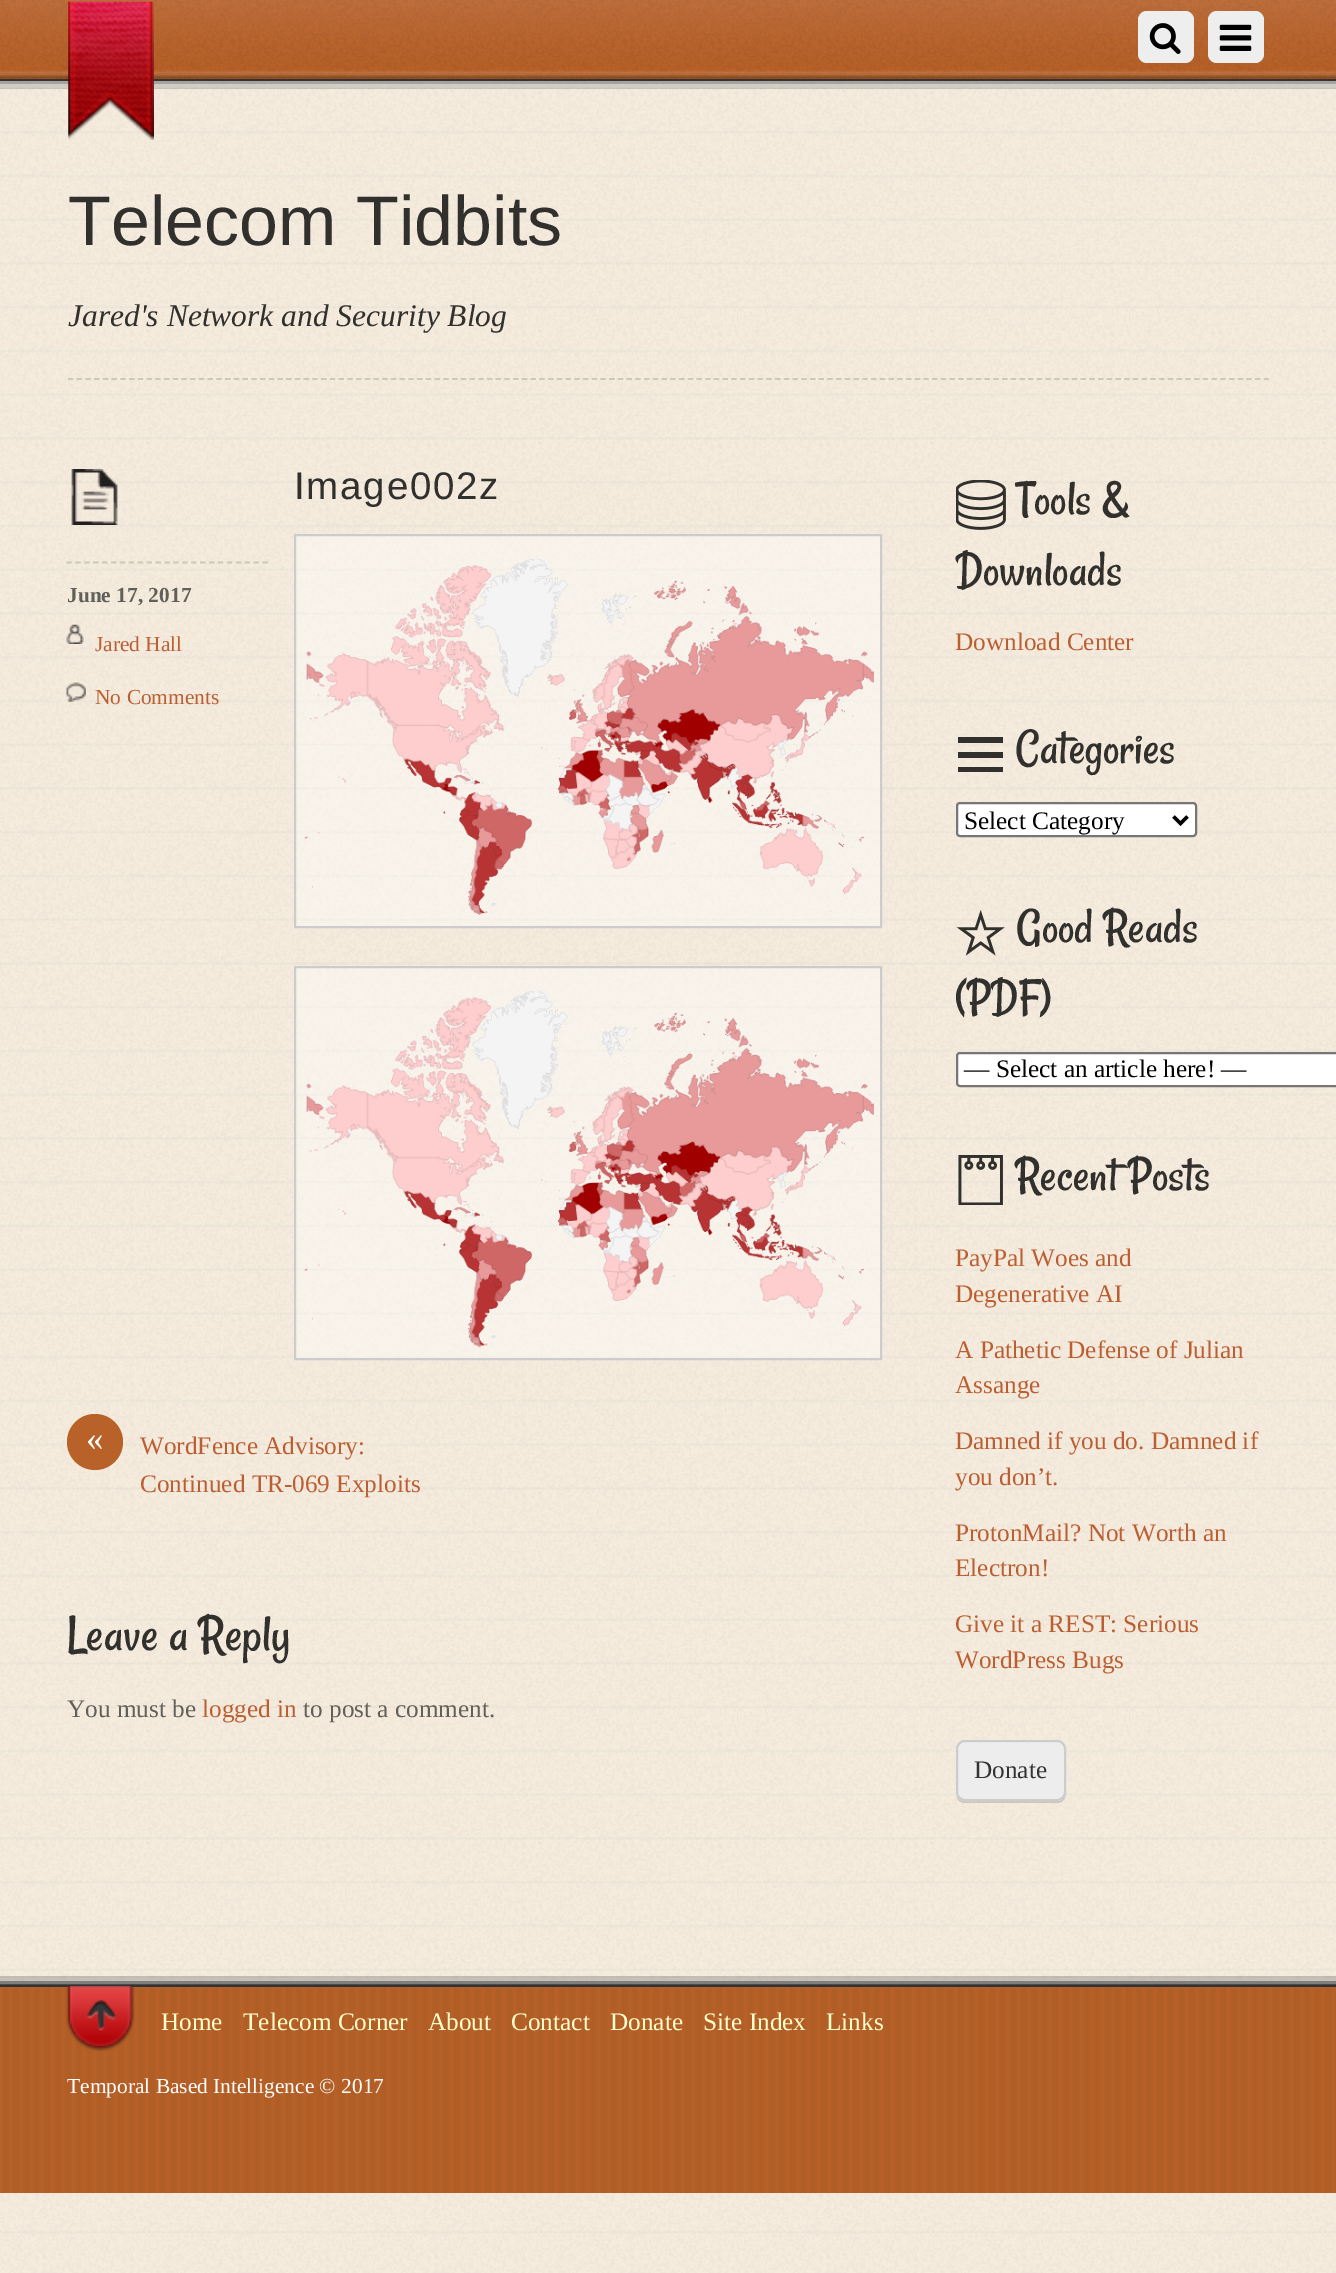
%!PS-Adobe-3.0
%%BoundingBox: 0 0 1336 2273
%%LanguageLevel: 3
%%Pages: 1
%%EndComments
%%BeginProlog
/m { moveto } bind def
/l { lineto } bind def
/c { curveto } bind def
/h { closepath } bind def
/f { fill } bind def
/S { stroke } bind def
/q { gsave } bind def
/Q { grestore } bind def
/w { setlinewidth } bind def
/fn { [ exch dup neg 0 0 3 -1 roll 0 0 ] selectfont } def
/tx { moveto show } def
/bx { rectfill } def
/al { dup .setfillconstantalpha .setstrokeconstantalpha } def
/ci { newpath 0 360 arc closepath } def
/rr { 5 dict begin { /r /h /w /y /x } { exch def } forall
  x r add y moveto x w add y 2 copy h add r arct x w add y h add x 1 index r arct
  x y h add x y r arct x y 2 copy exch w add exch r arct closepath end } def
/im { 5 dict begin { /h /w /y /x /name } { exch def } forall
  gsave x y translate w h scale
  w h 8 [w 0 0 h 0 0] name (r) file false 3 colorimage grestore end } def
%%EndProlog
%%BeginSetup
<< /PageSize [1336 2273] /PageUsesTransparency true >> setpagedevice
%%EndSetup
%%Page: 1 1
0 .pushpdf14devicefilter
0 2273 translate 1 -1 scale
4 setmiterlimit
0.965 0.929 0.875 setrgbcolor
0 0 1336 2273 bx
(image0.raw) 0 81 1336 2192 im
0.3 al
0 setgray
0 81 1336 3 bx
1 setgray
0 81 1336 7 bx
0.15 al
0 setgray
0 81 1336 8 bx
1 al
0.722 0.38 0.157 setrgbcolor
0 0 1336 79 bx
(image1.raw) 0 0 1336 79 im
0.2 setgray
0 79 1336 2 bx
0.8 0.788 0.718 setrgbcolor
1.8 w
[5.25 3.48] 0 setdash
68 379 m 1269 379 l S
(image2.raw) 68 1 86 139 im
0.933 setgray
1138 11 56 52 9 rr f
(image3.raw) 1149 23 32 31 im
1208 11 56 52 9 rr f
(image4.raw) 1219 24 33 27 im
/LiberationSans-Regular 70 fn
0.192 0.188 0.176 setrgbcolor
(Telecom Tidbits) 68 245 tx
/LiberationSerif-Italic 31.5 fn
(Jared's Network and Security Blog) 68 326 tx
0.8 al
0 setgray
0 1984 1336 1 bx
0.5 al
0 1981 1336 4 bx
0.3 al
1 setgray
0 1978 1336 7 bx
0.2 al
0 setgray
0 1976 1336 9 bx
1 al
(image5.raw) 71 469 47 56 im
/LiberationSans-Regular 38.5 fn
0.192 0.188 0.176 setrgbcolor
294 499 m 1.75 0 (Image002z) ashow
0.8 0.788 0.718 setrgbcolor
[5.25 3.66] 0 setdash
66.5 562.5 m 268 562.5 l S
/LiberationSerif-Bold 21.4 fn
0.384 0.373 0.349 setrgbcolor
(June 17, 2017) 67 602 tx
(image6.raw) 66 624 18 20 im
/LiberationSerif-Regular 21.4 fn
0.733 0.373 0.2 setrgbcolor
(Jared Hall) 95 651 tx
(image7.raw) 66 682 20 20 im
(No Comments) 95 704 tx
0.4 al
1 setgray
295 535 m 881 535 l 881 927 l 295 927 l h f
1 al
0.8 setgray
2 w
[] 0 setdash
295 535 m 881 535 l 881 927 l 295 927 l h S
(image8.raw) 304 559 570 357 im
0.4 al
1 setgray
295 967 m 881 967 l 881 1359 l 295 1359 l h f
1 al
0.8 setgray
295 967 m 881 967 l 881 1359 l 295 1359 l h S
(image9.raw) 304 991 570 357 im
0.722 0.38 0.157 setrgbcolor
95 1442 28 ci f
/LiberationSerif-Regular 35 fn
1 setgray
(«) 86 1450 tx
/LiberationSerif-Regular 25.25 fn
0.733 0.373 0.2 setrgbcolor
(WordFence Advisory:) 140 1454 tx
(Continued TR-069 Exploits) 140 1492 tx
/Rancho-Regular 53 fn
0.192 0.188 0.176 setrgbcolor
(Leave a Reply) 67 1650 tx
/LiberationSerif-Regular 25.25 fn
0.384 0.373 0.349 setrgbcolor
(You must be) 67 1717 tx
0.733 0.373 0.2 setrgbcolor
(logged in) 202 1717 tx
0.384 0.373 0.349 setrgbcolor
(to post a comment.) 303 1717 tx
(image10.raw) 956 480 50 50 im
/Rancho-Regular 50.5 fn
0.192 0.188 0.176 setrgbcolor
(Tools &) 1016 514 tx
(Downloads) 955 585 tx
/LiberationSerif-Regular 25.25 fn
0.733 0.373 0.2 setrgbcolor
(Download Center) 955 650 tx
0.192 0.188 0.176 setrgbcolor
1003 737 m 958 737 l 958 743 l 1003 743 l h 958 758 m 958 752 l 1003 752 l 1003 758 l h 958 772 m 958 767 l 1003 767 l 1003 772 l h f
/Rancho-Regular 50.5 fn
(Categories) 1016 763 tx
1 setgray
957 803 239 33 3 rr q f Q
0.463 setgray
S
0 setgray
3.5 w
1173.5 816.5 m 1180.5 823.5 l 1187.5 816.5 l S
/LiberationSerif-Regular 25.25 fn
(Select Category) 964 829 tx
(image11.raw) 956 910 49 46 im
/Rancho-Regular 50.5 fn
0.192 0.188 0.176 setrgbcolor
(Good Reads) 1016 942 tx
(\(PDF\)) 955 1012 tx
1 setgray
957 1053 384 33 3 rr q f Q
0.463 setgray
2 w
S
/LiberationSerif-Regular 25.25 fn
0 setgray
(— Select an article here! —) 964 1077 tx
(image12.raw) 958 1155 45 50 im
/Rancho-Regular 50.5 fn
0.192 0.188 0.176 setrgbcolor
(Recent Posts) 1016 1190 tx
/LiberationSerif-Regular 25.25 fn
0.733 0.373 0.2 setrgbcolor
(PayPal Woes and) 955 1266 tx
(Degenerative AI) 955 1302 tx
(A Pathetic Defense of Julian) 955 1358 tx
(Assange) 955 1393 tx
(Damned if you do. Damned if) 955 1449 tx
(you don’t.) 955 1485 tx
(ProtonMail? Not Worth an) 955 1541 tx
(Electron!) 955 1576 tx
(Give it a REST: Serious) 955 1632 tx
(WordPress Bugs) 955 1668 tx
0.15 al
0 setgray
956 1795 m 957 1800 960 1803 965 1803 c 1057 1803 l 1062 1803 1066 1799 1066 1794 c 1066 1748 l 1066 1794 l 1064 1797 l 1063 1799 1061 1800 1059 1801 c 980 1801 l 974 1801 959 1804 956 1795 c h f
1 al
0.929 setgray
956 1740 110 61 9 rr f
0.945 setgray
964 1743 m 1057 1743 l 1061 1743 1064 1746 1064 1750 c 1064 1737 1051 1741 1042 1741 c 980 1741 l 970 1741 957 1737 957 1750 c 957 1746 960 1743 964 1743 c h f
0.8 setgray
957 1741 108 59 8 rr S
0.2 setgray
(Donate) 974 1778 tx
0.722 0.38 0.157 setrgbcolor
0 1987 1336 206 bx
(image13.raw) 2 1987 1334 206 im
0.2 setgray
0 1985 1336 2 bx
(image14.raw) 66 1986 69 65 im
1 1 0.8 setrgbcolor
(Home) 161 2030 tx
(Telecom Corner) 243 2030 tx
(About) 428 2030 tx
(Contact) 511 2030 tx
(Donate) 610 2030 tx
(Site Index) 703 2030 tx
(Links) 826 2030 tx
/LiberationSerif-Regular 21.4 fn
1 setgray
(Temporal Based Intelligence © 2017) 67 2093 tx
.poppdf14devicefilter showpage
%%EOF
